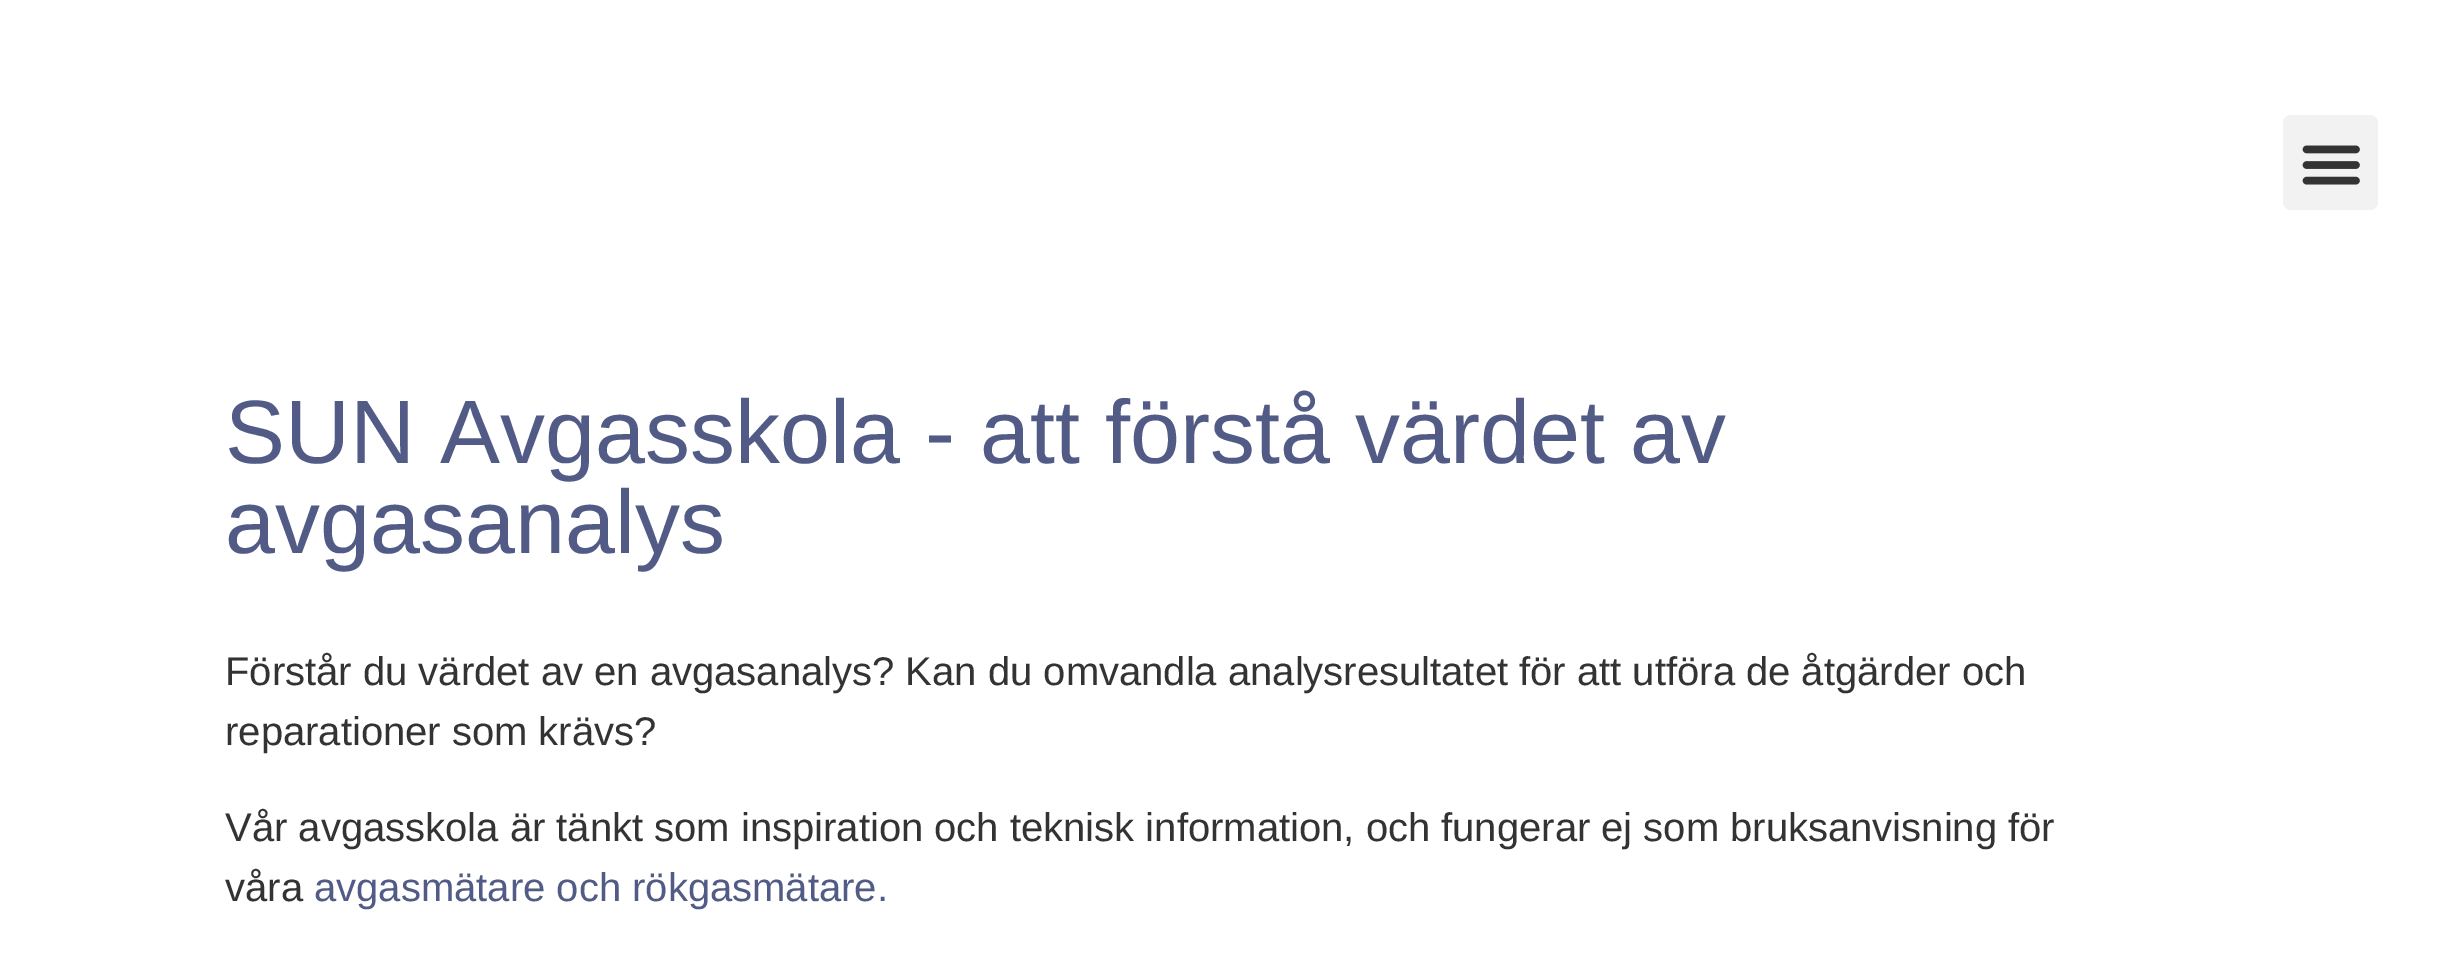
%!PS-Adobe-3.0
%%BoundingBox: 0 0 2464 975
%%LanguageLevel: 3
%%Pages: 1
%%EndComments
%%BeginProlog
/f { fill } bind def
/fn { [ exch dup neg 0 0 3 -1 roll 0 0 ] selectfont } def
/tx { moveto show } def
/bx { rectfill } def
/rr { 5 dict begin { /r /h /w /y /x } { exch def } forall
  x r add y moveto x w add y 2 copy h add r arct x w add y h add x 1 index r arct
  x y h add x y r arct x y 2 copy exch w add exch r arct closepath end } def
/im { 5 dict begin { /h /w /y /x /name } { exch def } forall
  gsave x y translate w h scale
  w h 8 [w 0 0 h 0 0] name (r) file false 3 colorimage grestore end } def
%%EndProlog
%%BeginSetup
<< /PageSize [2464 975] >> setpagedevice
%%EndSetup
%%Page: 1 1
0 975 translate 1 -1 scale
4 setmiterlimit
1 setgray
0 0 2464 975 bx
0.949 setgray
2283 115 95 95 8 rr f
(image0.raw) 2302 145 58 40 im
/LiberationSans-Regular 90 fn
0.318 0.357 0.525 setrgbcolor
(SUN Avgasskola - att förstå värdet av) 225 463 tx
(avgasanalys) 225 553 tx
/LiberationSans-Regular 40 fn
0.2 setgray
(Förstår du värdet av en avgasanalys? Kan du omvandla analysresultatet för att utföra de åtgärder och) 225 685 tx
(reparationer som krävs?) 225 745 tx
(Vår avgasskola är tänkt som inspiration och teknisk information, och fungerar ej som bruksanvisning för) 225 841 tx
(våra) 225 901 tx
0.318 0.357 0.525 setrgbcolor
(avgasmätare och rökgasmätare.) 314 901 tx
showpage
%%EOF
